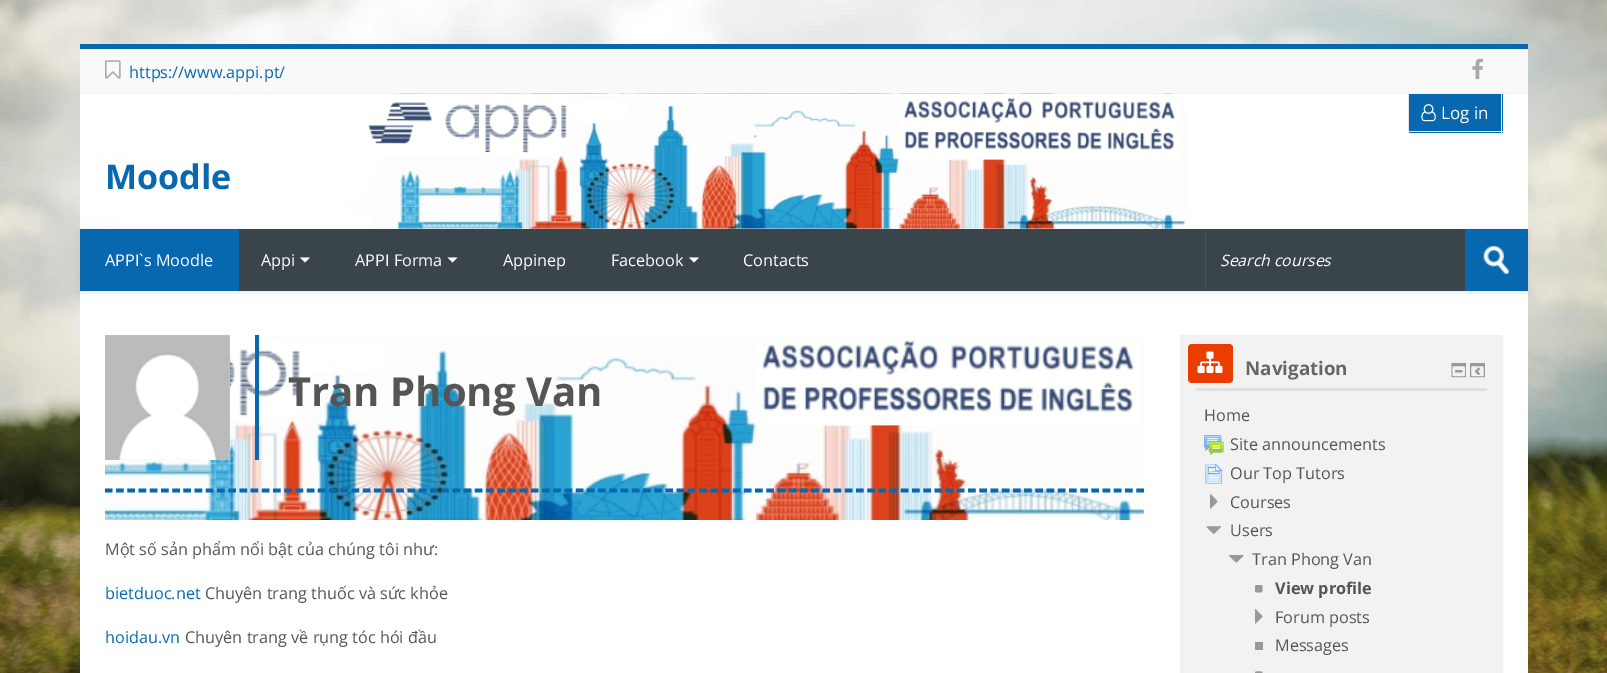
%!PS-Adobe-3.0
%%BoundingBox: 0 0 1607 673
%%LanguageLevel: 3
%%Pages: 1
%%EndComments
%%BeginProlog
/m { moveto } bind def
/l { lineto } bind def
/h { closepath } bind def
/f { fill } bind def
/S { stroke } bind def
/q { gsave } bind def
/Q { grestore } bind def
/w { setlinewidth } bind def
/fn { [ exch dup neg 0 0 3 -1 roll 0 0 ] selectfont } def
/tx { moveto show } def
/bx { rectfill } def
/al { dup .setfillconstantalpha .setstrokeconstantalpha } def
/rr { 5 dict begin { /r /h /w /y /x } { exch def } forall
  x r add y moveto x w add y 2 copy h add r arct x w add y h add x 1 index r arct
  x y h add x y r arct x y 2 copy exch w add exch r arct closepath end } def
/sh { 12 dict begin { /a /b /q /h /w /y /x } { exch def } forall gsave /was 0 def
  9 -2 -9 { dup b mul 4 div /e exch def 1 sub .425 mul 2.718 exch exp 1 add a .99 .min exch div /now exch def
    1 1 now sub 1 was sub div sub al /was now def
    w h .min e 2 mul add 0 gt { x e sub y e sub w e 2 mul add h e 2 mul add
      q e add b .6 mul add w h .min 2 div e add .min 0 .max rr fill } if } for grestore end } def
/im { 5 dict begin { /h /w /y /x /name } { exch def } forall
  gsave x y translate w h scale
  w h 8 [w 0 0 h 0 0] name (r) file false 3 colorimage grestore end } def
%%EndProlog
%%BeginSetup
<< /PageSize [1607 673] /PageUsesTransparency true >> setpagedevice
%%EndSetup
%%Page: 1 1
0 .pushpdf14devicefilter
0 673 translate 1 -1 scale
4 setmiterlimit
1 setgray
0 0 1607 673 bx
(image0.raw) 0 0 1607 673 im
80 94 1448 579 bx
0.027 0.408 0.69 setrgbcolor
80 44 1448 5 bx
0.976 setgray
80 49 1448 44 bx
0.929 setgray
80 93 1448 1 bx
(image1.raw) 105 60 16 19 im
/OpenSans-Regular 16.25 fn
0.027 0.408 0.69 setrgbcolor
(https://www.appi.pt/) 129 78 tx
(image2.raw) 1472 58 11 22 im
(image3.raw) 80 93 1447 136 im
1409 94 94 39 bx
0.89 0.902 0.91 setrgbcolor
1501 94 1 39 bx
1408 131 95 1 bx
1408 94 1 39 bx
(image4.raw) 1421 104 15 18 im
/OpenSans-Regular 17 fn
1 setgray
(Log in) 1441 119 tx
/OpenSans-Bold 34 fn
0.027 0.408 0.69 setrgbcolor
(Moodle) 105 189 tx
0 setgray
80 230 1448 63 0 2.5 0.07 sh
0.227 0.271 0.294 setrgbcolor
239 229 1226 62 bx
0.027 0.408 0.69 setrgbcolor
80 229 159 62 bx
/OpenSans-Regular 16.25 fn
1 setgray
(APPI`s Moodle) 105 266 tx
(Appi) 261 266 tx
300 257.5 m 310 257.5 l 305 262.5 l h f
(APPI Forma) 355 266 tx
447.5 257.5 m 457.5 257.5 l 452.5 262.5 l h f
(Appinep) 503 266 tx
(Facebook) 611 266 tx
689 257.5 m 699 257.5 l 694 262.5 l h f
(Contacts) 743 266 tx
0.224 0.259 0.278 setrgbcolor
1206 229 1 62 bx
0.298 0.333 0.353 setrgbcolor
1205 229 1 62 bx
/OpenSans-Italic 15.75 fn
1 setgray
(Search courses) 1220 266 tx
0.027 0.408 0.69 setrgbcolor
1465 229 63 62 bx
(image5.raw) 1483 246 26 28 im
(image6.raw) 105 335 1039 185 im
3.8 w
[7.5 3.71] 0 setdash
105 490.5 m 1144 490.5 l S
(image7.raw) 105 335 125 125 im
255 335 4 125 bx
/OpenSans-Bold 40 fn
0.333 setgray
(Tran Phong Van) 288 406 tx
/OpenSans-Regular 16.25 fn
(Một số sản phẩm nổi bật của chúng tôi như:) 105 555 tx
0.027 0.408 0.69 setrgbcolor
(bietduoc.net) 105 599 tx
0.333 setgray
(Chuyên trang thuốc và sức khỏe) 205 599 tx
0.027 0.408 0.69 setrgbcolor
(hoidau.vn) 105 643 tx
0.333 setgray
(Chuyên trang về rụng tóc hói đầu) 185 643 tx
0.949 setgray
1180.5 335.5 322 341 2 rr q f Q
0.937 setgray
1 w
[] 0 setdash
S
0.878 setgray
1196 388 291 3 bx
0.922 0.239 0 setrgbcolor
1188 344 45 39 4 rr f
(image8.raw) 1197 351 26 23 im
/OpenSans-Bold 18.75 fn
0.4 setgray
(Navigation) 1245 375 tx
(image9.raw) 1451 363 15 15 im
(image10.raw) 1470 363 15 15 im
/OpenSans-Regular 16.25 fn
0.333 setgray
(Home) 1204 421 tx
(image11.raw) 1204 435 20 20 im
(Site announcements) 1230 450 tx
(image12.raw) 1205 464 18 20 im
(Our Top Tutors) 1230 479 tx
(image13.raw) 1210 493 8 16 im
(Courses) 1230 508 tx
(image14.raw) 1206 526 16 8 im
(Users) 1230 536 tx
(image15.raw) 1228 555 16 8 im
(Tran Phong Van) 1252 565 tx
(image16.raw) 1254 585 9 8 im
/OpenSans-Bold 16.25 fn
(View profile) 1275 594 tx
(image13.raw) 1255 608 8 16 im
/OpenSans-Regular 16.25 fn
(Forum posts) 1275 623 tx
(Messages) 1275 651 tx
0.6 setgray
1255 642 8 8 bx
(image17.raw) 1255 671 8 2 im
.poppdf14devicefilter showpage
%%EOF
